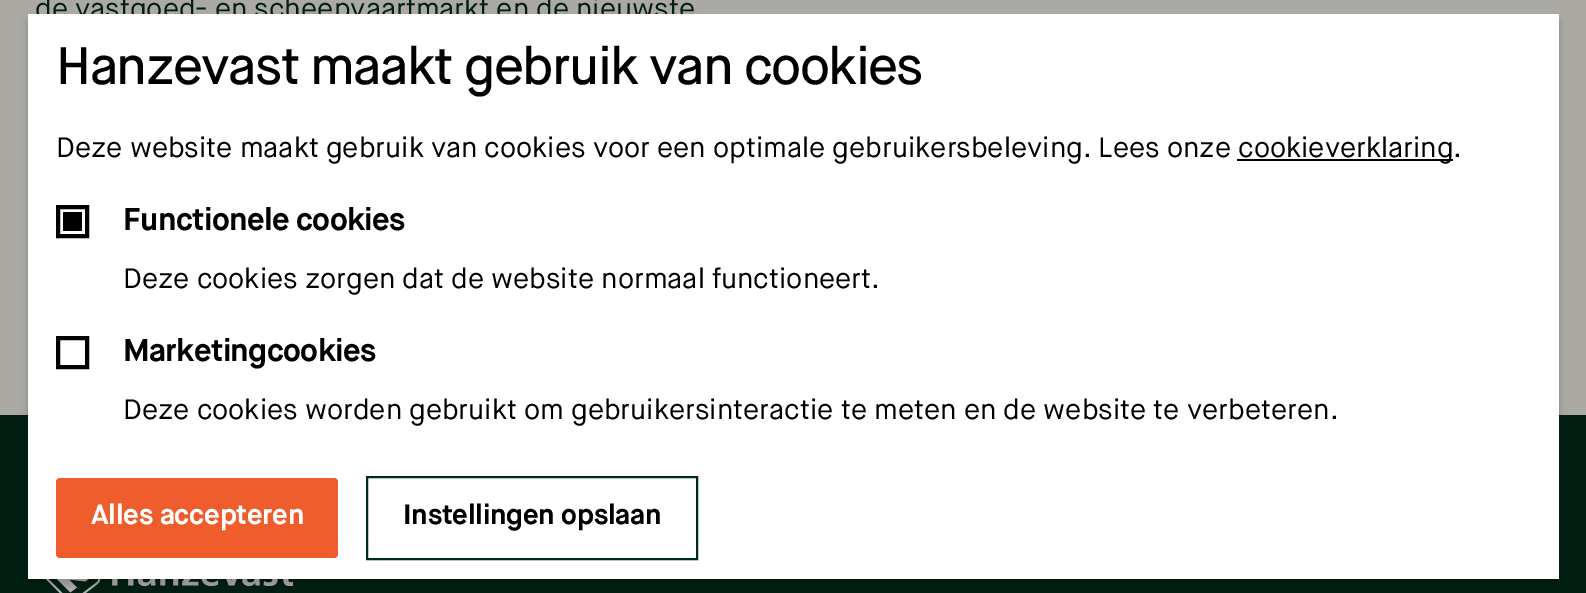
%!PS-Adobe-3.0
%%BoundingBox: 0 0 1586 593
%%LanguageLevel: 3
%%Pages: 1
%%EndComments
%%BeginProlog
/m { moveto } bind def
/f { fill } bind def
/w { setlinewidth } bind def
/fn { [ exch dup neg 0 0 3 -1 roll 0 0 ] selectfont } def
/tx { moveto show } def
/bx { rectfill } def
/al { dup .setfillconstantalpha .setstrokeconstantalpha } def
/rr { 5 dict begin { /r /h /w /y /x } { exch def } forall
  x r add y moveto x w add y 2 copy h add r arct x w add y h add x 1 index r arct
  x y h add x y r arct x y 2 copy exch w add exch r arct closepath end } def
/sh { 12 dict begin { /a /b /q /h /w /y /x } { exch def } forall gsave /was 0 def
  9 -2 -9 { dup b mul 4 div /e exch def 1 sub .425 mul 2.718 exch exp 1 add a .99 .min exch div /now exch def
    1 1 now sub 1 was sub div sub al /was now def
    w h .min e 2 mul add 0 gt { x e sub y e sub w e 2 mul add h e 2 mul add
      q e add b .6 mul add w h .min 2 div e add .min 0 .max rr fill } if } for grestore end } def
/im { 5 dict begin { /h /w /y /x /name } { exch def } forall
  gsave x y translate w h scale
  w h 8 [w 0 0 h 0 0] name (r) file false 3 colorimage grestore end } def
%%EndProlog
%%BeginSetup
<< /PageSize [1586 593] /PageUsesTransparency true >> setpagedevice
%%EndSetup
%%Page: 1 1
0 .pushpdf14devicefilter
0 593 translate 1 -1 scale
4 setmiterlimit
0.671 0.663 0.643 setrgbcolor
0 0 1586 593 bx
/MaisonNeue-Regular 28 fn
0 0.122 0.071 setrgbcolor
(de vastgoed- en scheepvaartmarkt en de nieuwste) 35 18 tx
0 415 1586 178 bx
(image0.raw) 45 579 249 14 im
0 setgray
28 21 1531 565 0 3.5 0.2 sh
1 setgray
28 14 1531 565 bx
/MaisonNeue-Medium 52.5 fn
0 setgray
56 84 m -1.55 0 (Hanzevast maakt gebruik van cookies) ashow
/MaisonNeue-Regular 28 fn
(Deze website maakt gebruik van cookies voor een optimale gebruikersbeleving. Lees onze) 56 157 tx
1237 159 216 2 bx
(cookieverklaring.) 1238 157 tx
4 w
58 207 29 29 rectstroke
63 212 19 19 bx
/MaisonNeue-Bold 31.5 fn
123 230 m -0.6 0 (Functionele cookies) ashow
/MaisonNeue-Regular 28 fn
(Deze cookies zorgen dat de website normaal functioneert.) 123 288 tx
58 338 29 29 rectstroke
/MaisonNeue-Bold 31.5 fn
123 361 m -0.6 0 (Marketingcookies) ashow
/MaisonNeue-Regular 28 fn
(Deze cookies worden gebruikt om gebruikersinteractie te meten en de website te verbeteren.) 123 419 tx
0.937 0.365 0.176 setrgbcolor
56 478 282 80 4 rr f
/MaisonNeue-Bold 28 fn
1 setgray
91 524 m -0.25 0 (Alles accepteren) ashow
0 0.173 0.102 setrgbcolor
2 w
367 477 330 82 rectstroke
0 setgray
403 524 m -0.25 0 (Instellingen opslaan) ashow
.poppdf14devicefilter showpage
%%EOF
